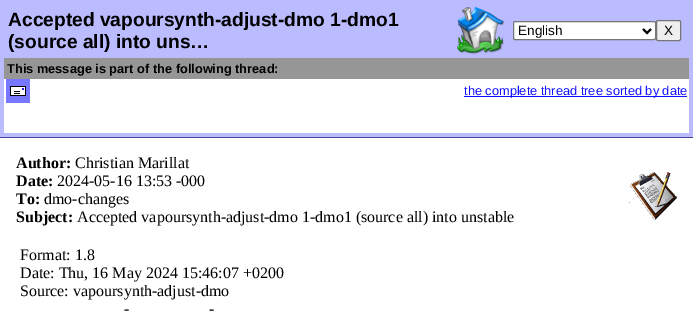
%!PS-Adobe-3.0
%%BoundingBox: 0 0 693 311
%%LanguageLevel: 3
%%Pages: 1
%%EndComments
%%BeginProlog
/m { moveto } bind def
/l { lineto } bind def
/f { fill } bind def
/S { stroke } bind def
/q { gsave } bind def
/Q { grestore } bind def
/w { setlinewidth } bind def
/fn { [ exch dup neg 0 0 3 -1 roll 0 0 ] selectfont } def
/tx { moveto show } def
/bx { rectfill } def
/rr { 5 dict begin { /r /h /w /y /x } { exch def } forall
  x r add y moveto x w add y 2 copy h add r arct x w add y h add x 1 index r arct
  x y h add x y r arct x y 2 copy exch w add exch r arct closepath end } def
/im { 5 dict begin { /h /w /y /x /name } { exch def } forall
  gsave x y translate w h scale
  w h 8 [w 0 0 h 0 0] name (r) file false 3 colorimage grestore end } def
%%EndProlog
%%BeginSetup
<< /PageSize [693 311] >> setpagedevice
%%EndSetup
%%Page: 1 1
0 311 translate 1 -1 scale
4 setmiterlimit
0.733 0.733 1 setrgbcolor
0 0 693 311 bx
0.263 0.263 0.6 setrgbcolor
0 137 693 1 bx
/LiberationSans-Bold 19.2 fn
0 setgray
(Accepted vapoursynth-adjust-dmo 1-dmo1) 8 26 tx
(\(source all\) into uns…) 8 48 tx
(image0.raw) 457 7 48 48 im
1 setgray
513.5 21.5 142 18 1.5 rr q f Q
0.463 setgray
S
0 setgray
2 w
643 29 m 647 33 l 651 29 l S
/LiberationSans-Regular 13.5 fn
(English) 518 35 tx
0.937 setgray
656.5 20.5 24 20 1.5 rr q f Q
0.463 setgray
1 w
S
0 setgray
(X) 664 35 tx
0.588 setgray
4 58 685 21 bx
/LiberationSans-Bold 12.8 fn
0 setgray
(This message is part of the following thread:) 7 73 tx
1 setgray
4 79 685 24 bx
0.467 0.467 1 setrgbcolor
6 79 24 24 bx
(image1.raw) 10 86 16 10 im
0.067 0.067 1 setrgbcolor
464 96 223 1 bx
/LiberationSans-Regular 12.8 fn
(the complete thread tree sorted by date) 464 95 tx
1 setgray
4 103 685 15 bx
4 118 685 15 bx
0 138 693 173 bx
/LiberationSerif-Bold 16 fn
0 setgray
(Author:) 16 168 tx
/LiberationSerif-Regular 16 fn
(Christian Marillat) 75 168 tx
/LiberationSerif-Bold 16 fn
(Date:) 16 186 tx
/LiberationSerif-Regular 16 fn
(2024-05-16 13:53 -000) 57 186 tx
/LiberationSerif-Bold 16 fn
(To:) 16 204 tx
/LiberationSerif-Regular 16 fn
(dmo-changes) 44 204 tx
/LiberationSerif-Bold 16 fn
(Subject:) 16 222 tx
/LiberationSerif-Regular 16 fn
(Accepted vapoursynth-adjust-dmo 1-dmo1 \(source all\) into unstable) 77 222 tx
(image2.raw) 629 172 48 48 im
(Format: 1.8) 20 260 tx
(Date: Thu, 16 May 2024 15:46:07 +0200) 20 278 tx
(Source: vapoursynth-adjust-dmo) 20 296 tx
(-) 124 314 tx
(-) 209 314 tx
showpage
%%EOF
